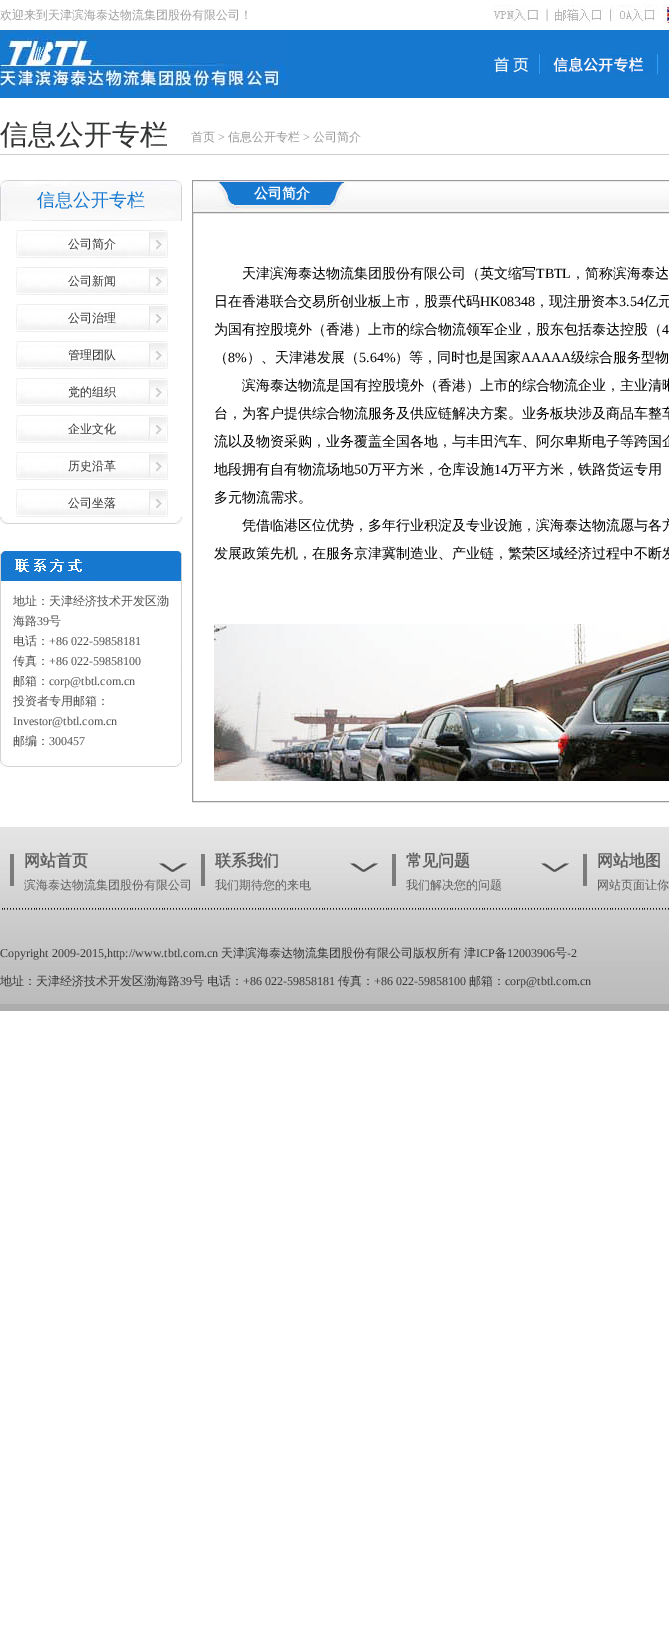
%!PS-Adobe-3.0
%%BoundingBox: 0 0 669 1644
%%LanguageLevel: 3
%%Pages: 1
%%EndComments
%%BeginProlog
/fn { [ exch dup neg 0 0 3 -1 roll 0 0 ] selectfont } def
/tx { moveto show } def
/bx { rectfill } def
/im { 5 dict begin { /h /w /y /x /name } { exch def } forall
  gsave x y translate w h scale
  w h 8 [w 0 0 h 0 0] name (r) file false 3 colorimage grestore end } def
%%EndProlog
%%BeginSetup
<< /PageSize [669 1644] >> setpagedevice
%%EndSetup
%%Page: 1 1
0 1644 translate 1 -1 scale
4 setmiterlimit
1 setgray
0 0 669 1644 bx
/WenQuanYiZenHei-Medium 12 fn
0.631 setgray
(欢迎来到天津滨海泰达物流集团股份有限公司！) 0 19 tx
(image0.raw) 494 5 54 17 im
(image1.raw) 552 4 56 21 im
(image2.raw) 610 4 48 21 im
(image3.raw) 663 4 6 21 im
0.086 0.471 0.812 setrgbcolor
0 30 669 68 bx
(image4.raw) 0 30 288 65 im
(image5.raw) 491 53 49 24 im
(image6.raw) 548 53 110 24 im
(image7.raw) 666 53 3 24 im
0.8 setgray
0 154 669 1 bx
/WenQuanYiZenHei-Medium 28 fn
0.2 0.208 0.204 setrgbcolor
(信息公开专栏) 0 144 tx
/WenQuanYiZenHei-Medium 12 fn
0.6 setgray
(首页) 191 141 tx
/LiberationSerif-Regular 12 fn
(>) 218 141 tx
/WenQuanYiZenHei-Medium 12 fn
(信息公开专栏) 228 141 tx
/LiberationSerif-Regular 12 fn
(>) 303 141 tx
/WenQuanYiZenHei-Medium 12 fn
(公司简介) 313 141 tx
(image8.raw) 0 180 182 41 im
/WenQuanYiZenHei-Medium 18 fn
0.09 0.471 0.816 setrgbcolor
(信息公开专栏) 37 206 tx
(image9.raw) 16 230 152 28 im
/WenQuanYiZenHei-Medium 12 fn
0.2 0.208 0.204 setrgbcolor
(公司简介) 68 248 tx
(image9.raw) 16 267 152 28 im
(公司新闻) 68 285 tx
(image9.raw) 16 304 152 28 im
(公司治理) 68 322 tx
(image9.raw) 16 341 152 28 im
(管理团队) 68 359 tx
(image9.raw) 16 378 152 28 im
(党的组织) 68 396 tx
(image9.raw) 16 415 152 28 im
(企业文化) 68 433 tx
(image9.raw) 16 452 152 28 im
(历史沿革) 68 470 tx
(image9.raw) 16 489 152 28 im
(公司坐落) 68 507 tx
(image10.raw) 0 517 182 7 im
(image11.raw) 0 551 182 216 im
0.314 setgray
(地址：天津经济技术开发区渤) 13 605 tx
(海路) 13 625 tx
/LiberationSerif-Regular 12 fn
(39) 37 625 tx
/WenQuanYiZenHei-Medium 12 fn
(号) 49 625 tx
(电话：) 13 645 tx
/LiberationSerif-Regular 12 fn
(+86 022-59858181) 49 645 tx
/WenQuanYiZenHei-Medium 12 fn
(传真：) 13 665 tx
/LiberationSerif-Regular 12 fn
(+86 022-59858100) 49 665 tx
/WenQuanYiZenHei-Medium 12 fn
(邮箱：) 13 685 tx
/LiberationSerif-Regular 12 fn
(corp@tbtl.com.cn) 49 685 tx
/WenQuanYiZenHei-Medium 12 fn
(投资者专用邮箱：) 13 705 tx
/LiberationSerif-Regular 12 fn
(Investor@tbtl.com.cn) 13 725 tx
/WenQuanYiZenHei-Medium 12 fn
(邮编：) 13 745 tx
/LiberationSerif-Regular 12 fn
(300457) 49 745 tx
(image12.raw) 192 180 477 32 im
/WenQuanYiZenHei-Bold 14 fn
1 setgray
(公司简介) 254 198 tx
0.6 setgray
192.5 212.5 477 589 rectstroke
/WenQuanYiZenHei-Medium 14 fn
0 setgray
(天津滨海泰达物流集团股份有限公司（英文缩写) 242 278 tx
/LiberationSerif-Regular 14 fn
(TBTL) 536 278 tx
/WenQuanYiZenHei-Medium 14 fn
(，简称滨海泰达) 571 278 tx
(日在香港联合交易所创业板上市，股票代码) 214 306 tx
/LiberationSerif-Regular 14 fn
(HK08348) 480 306 tx
/WenQuanYiZenHei-Medium 14 fn
(，现注册资本) 535 306 tx
/LiberationSerif-Regular 14 fn
(3.54) 619 306 tx
/WenQuanYiZenHei-Medium 14 fn
(亿元) 644 306 tx
(为国有控股境外（香港）上市的综合物流领军企业，股东包括泰达控股（) 214 334 tx
/LiberationSerif-Regular 14 fn
(4) 662 334 tx
/WenQuanYiZenHei-Medium 14 fn
(（) 214 362 tx
/LiberationSerif-Regular 14 fn
(8%) 228 362 tx
/WenQuanYiZenHei-Medium 14 fn
(）、天津港发展（) 247 362 tx
/LiberationSerif-Regular 14 fn
(5.64%) 359 362 tx
/WenQuanYiZenHei-Medium 14 fn
(）等，同时也是国家) 395 362 tx
/LiberationSerif-Regular 14 fn
(AAAAA) 521 362 tx
/WenQuanYiZenHei-Medium 14 fn
(级综合服务型物) 571 362 tx
(滨海泰达物流是国有控股境外（香港）上市的综合物流企业，主业清晰) 242 390 tx
(台，为客户提供综合物流服务及供应链解决方案。业务板块涉及商品车整车) 214 418 tx
(流以及物资采购，业务覆盖全国各地，与丰田汽车、阿尔卑斯电子等跨国企) 214 446 tx
(地段拥有自有物流场地) 214 474 tx
/LiberationSerif-Regular 14 fn
(50) 354 474 tx
/WenQuanYiZenHei-Medium 14 fn
(万平方米，仓库设施) 368 474 tx
/LiberationSerif-Regular 14 fn
(14) 494 474 tx
/WenQuanYiZenHei-Medium 14 fn
(万平方米，铁路货运专用) 508 474 tx
(多元物流需求。) 214 502 tx
(凭借临港区位优势，多年行业积淀及专业设施，滨海泰达物流愿与各方) 242 530 tx
(发展政策先机，在服务京津冀制造业、产业链，繁荣区域经济过程中不断发) 214 558 tx
(image13.raw) 214 624 455 157 im
(image14.raw) 0 827 669 184 im
(image15.raw) 0 908 669 2 im
(image16.raw) 10 852 184 36 im
/WenQuanYiZenHei-Bold 16 fn
0.373 setgray
(网站首页) 24 866 tx
/WenQuanYiZenHei-Medium 12 fn
(滨海泰达物流集团股份有限公司) 24 889 tx
(image16.raw) 201 852 184 36 im
/WenQuanYiZenHei-Bold 16 fn
(联系我们) 215 866 tx
/WenQuanYiZenHei-Medium 12 fn
(我们期待您的来电) 215 889 tx
(image16.raw) 392 852 184 36 im
/WenQuanYiZenHei-Bold 16 fn
(常见问题) 406 866 tx
/WenQuanYiZenHei-Medium 12 fn
(我们解决您的问题) 406 889 tx
(image17.raw) 583 852 6 36 im
/WenQuanYiZenHei-Bold 16 fn
(网站地图) 597 866 tx
/WenQuanYiZenHei-Medium 12 fn
(网站页面让你) 597 889 tx
/LiberationSerif-Regular 12 fn
0.224 setgray
(Copyright 2009-2015,http://www.tbtl.com.cn) 0 957 tx
/WenQuanYiZenHei-Medium 12 fn
(天津滨海泰达物流集团股份有限公司版权所有) 221 957 tx
(津) 464 957 tx
/LiberationSerif-Regular 12 fn
(ICP) 476 957 tx
/WenQuanYiZenHei-Medium 12 fn
(备) 495 957 tx
/LiberationSerif-Regular 12 fn
(12003906) 507 957 tx
/WenQuanYiZenHei-Medium 12 fn
(号) 555 957 tx
/LiberationSerif-Regular 12 fn
(-2) 567 957 tx
/WenQuanYiZenHei-Medium 12 fn
(地址：天津经济技术开发区渤海路) 0 985 tx
/LiberationSerif-Regular 12 fn
(39) 180 985 tx
/WenQuanYiZenHei-Medium 12 fn
(号) 192 985 tx
(电话：) 207 985 tx
/LiberationSerif-Regular 12 fn
(+86 022-59858181) 243 985 tx
/WenQuanYiZenHei-Medium 12 fn
(传真：) 338 985 tx
/LiberationSerif-Regular 12 fn
(+86 022-59858100) 374 985 tx
/WenQuanYiZenHei-Medium 12 fn
(邮箱：) 469 985 tx
/LiberationSerif-Regular 12 fn
(corp@tbtl.com.cn) 505 985 tx
showpage
%%EOF
